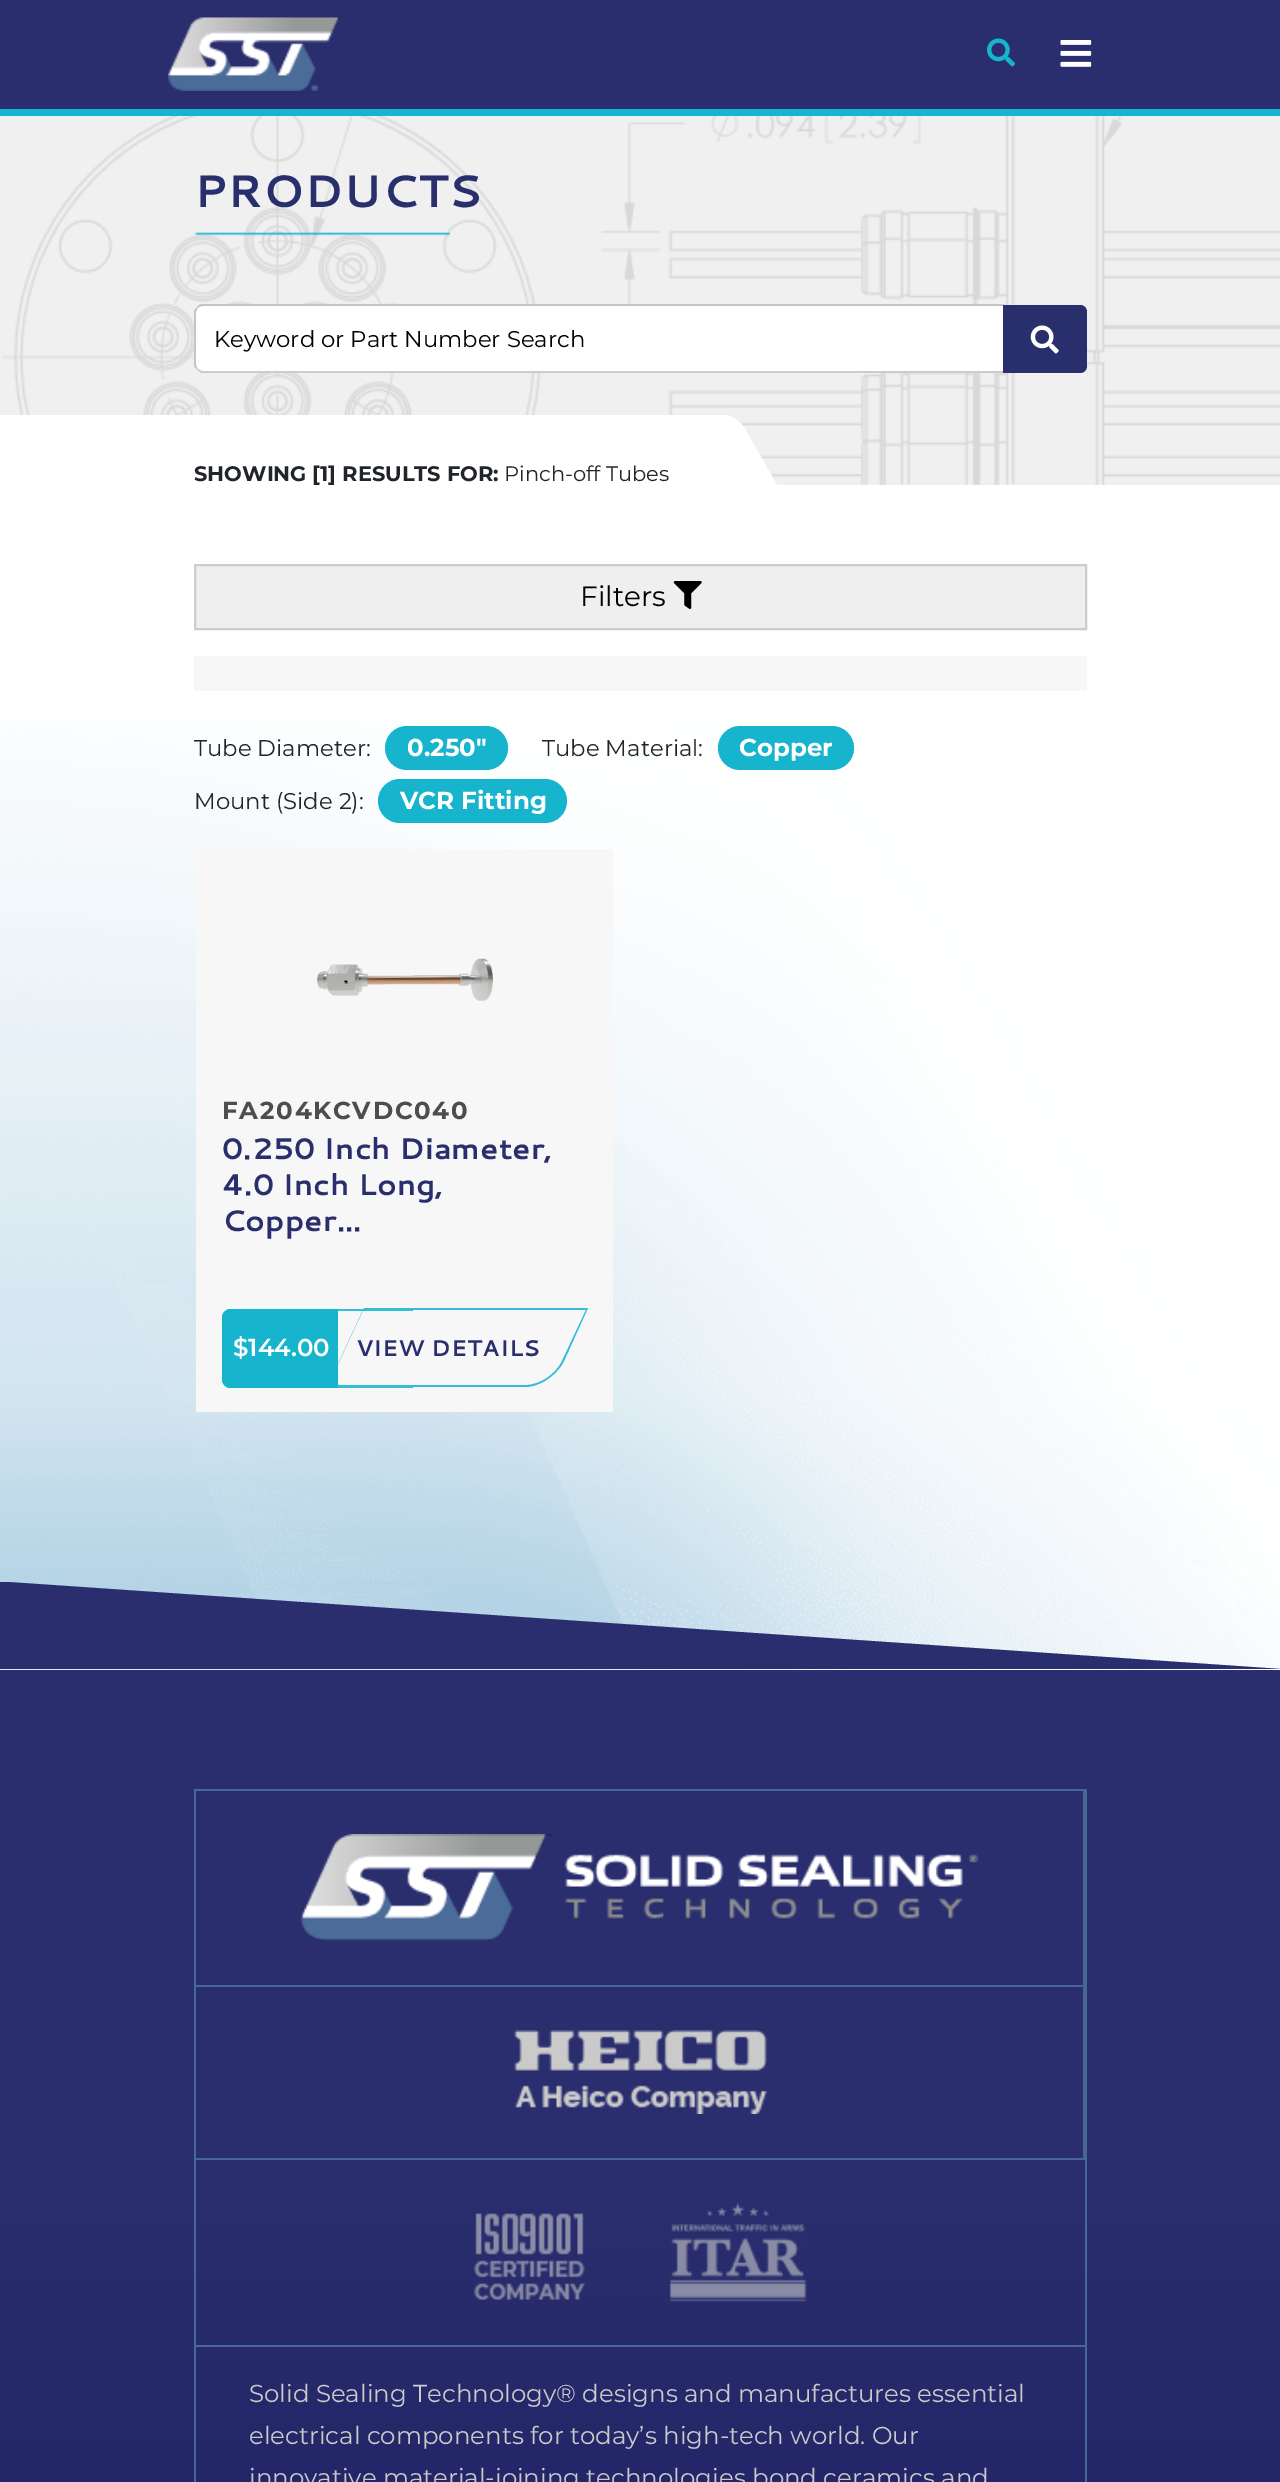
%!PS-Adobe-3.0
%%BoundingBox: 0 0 1280 2482
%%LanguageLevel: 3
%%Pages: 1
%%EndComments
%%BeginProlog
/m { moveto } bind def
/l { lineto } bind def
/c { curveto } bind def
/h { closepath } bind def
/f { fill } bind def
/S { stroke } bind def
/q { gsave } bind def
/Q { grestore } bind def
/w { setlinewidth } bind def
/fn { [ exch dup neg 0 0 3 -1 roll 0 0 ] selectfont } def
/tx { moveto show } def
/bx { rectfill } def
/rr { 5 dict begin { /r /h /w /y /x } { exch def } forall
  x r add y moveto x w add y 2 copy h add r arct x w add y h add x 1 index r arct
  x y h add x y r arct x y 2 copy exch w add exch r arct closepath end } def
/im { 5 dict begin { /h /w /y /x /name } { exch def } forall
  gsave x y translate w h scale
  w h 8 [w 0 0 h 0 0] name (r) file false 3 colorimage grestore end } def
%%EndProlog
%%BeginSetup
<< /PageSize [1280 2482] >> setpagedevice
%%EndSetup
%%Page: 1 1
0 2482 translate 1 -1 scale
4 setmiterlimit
1 setgray
0 0 1280 2482 bx
0.165 0.18 0.431 setrgbcolor
0 0 1280 109 bx
0.09 0.706 0.808 setrgbcolor
0 109 1280 7 bx
(image0.raw) 168 17 172 74 im
(image1.raw) 987 38 28 29 im
(image2.raw) 1060 40 32 27 im
0.941 setgray
0 116 1280 369 bx
(image3.raw) 2 116 1278 369 im
/Cantarell-Bold 45.5 fn
0.161 0.184 0.424 setrgbcolor
(PRODUCTS) 194 207 tx
(image4.raw) 194 232 256 5 im
1 setgray
203 305 m 1005 305 l 1005 373 l 203 373 l 198 373 194 369 194 364 c 194 314 l 194 309 198 305 203 305 c h f
0.773 setgray
203 306 m 201 306 199 307 198 308 c 197 307 l 200 304 l 1004 304 l 1003 306 l h f
0.8 setgray
201 373 m 197 370 l 198 369 l 199 370 201 371 203 371 c 1003 371 l 1004 373 l h f
0.773 setgray
194 311 m 197 307 l 198 308 l 197 309 196 311 196 313 c 196 364 l 196 366 197 368 198 369 c 197 370 l 194 366 l h f
/Montserrat-Regular 22.75 fn
0 setgray
(Keyword or Part Number Search) 214 347 tx
0.161 0.184 0.424 setrgbcolor
1003 305 m 1080 305 l 1084 305 1087 308 1087 312 c 1087 366 l 1087 370 1084 373 1080 373 c 1003 373 l h f
(image5.raw) 1030 325 29 29 im
(image6.raw) 0 719 1280 951 im
1 setgray
0 415 700 70 bx
/Montserrat-Bold 21 fn
0.129 0.145 0.161 setrgbcolor
(SHOWING [1] RESULTS FOR:) 194 481 tx
/Montserrat-Regular 21 fn
(Pinch-off Tubes) 504 481 tx
1 setgray
660 415 m 723 415 l 731 415 741 421 745 429 c 777 485 l 700 485 l h f
0.937 setgray
195 565 m 1086 565 l 1086 629 l 195 629 l h q f Q
0.8 setgray
2 w
S
/Montserrat-Regular 28 fn
0 setgray
(Filters) 580 606 tx
(image7.raw) 673 581 29 28 im
0.969 setgray
194 656 893 35 bx
/Montserrat-Regular 22.75 fn
0.129 0.145 0.161 setrgbcolor
(Tube Diameter:) 194 756 tx
0.09 0.706 0.808 setrgbcolor
385 726 123 44 22 rr f
/Montserrat-Bold 24.5 fn
1 setgray
(0.250") 407 756 tx
/Montserrat-Regular 22.75 fn
0.129 0.145 0.161 setrgbcolor
(Tube Material:) 542 756 tx
0.09 0.706 0.808 setrgbcolor
718 726 136 44 22 rr f
/Montserrat-Bold 24.5 fn
1 setgray
(Copper) 739 756 tx
/Montserrat-Regular 22.75 fn
0.129 0.145 0.161 setrgbcolor
(Mount \(Side 2\):) 194 809 tx
0.09 0.706 0.808 setrgbcolor
378 779 189 44 22 rr f
/Montserrat-Bold 24.5 fn
1 setgray
(VCR Fitting) 400 809 tx
0.969 setgray
196 849 417 563 bx
(image8.raw) 317 958 176 43 im
0.302 setgray
222 1119 m 1.75 0 (FA204KCVDC040) ashow
/Cantarell-Bold 29.75 fn
0.161 0.184 0.424 setrgbcolor
(0.250 Inch Diameter,) 222 1159 tx
(4.0 Inch Long,) 222 1195 tx
(Copper...) 222 1231 tx
0.204 0.741 0.831 setrgbcolor
364 1308 m 588 1308 l 564 1361 l 557 1375 540 1387 525 1387 c 339 1387 l 333 1387 330 1382 333 1375 c h 363 1310 m 586 1310 l 562 1361 l 556 1374 540 1385 526 1385 c 340 1385 l 333 1385 330 1381 333 1375 c h eofill
338 1309 m 413 1309 l 413 1388 l 338 1388 l 331 1388 326 1382 326 1376 c 326 1321 l 326 1314 331 1309 338 1309 c h 338 1311 m 413 1311 l 413 1386 l 338 1386 l 332 1386 327 1381 327 1376 c 327 1321 l 327 1315 332 1311 338 1311 c h eofill
0.09 0.706 0.808 setrgbcolor
231 1309 m 338 1309 l 338 1388 l 231 1388 l 226 1388 222 1384 222 1379 c 222 1318 l 222 1313 226 1309 231 1309 c h f
231 1309 m 338 1309 l 338 1388 l 231 1388 l 226 1388 222 1384 222 1379 c 222 1318 l 222 1313 226 1309 231 1309 c h 231 1311 m 338 1311 l 338 1386 l 231 1386 l 227 1386 224 1383 224 1379 c 224 1318 l 224 1314 227 1311 231 1311 c h eofill
/Montserrat-SemiBold 24.5 fn
1 setgray
($144.00) 233 1356 tx
/Cantarell-Bold 22.75 fn
0.161 0.184 0.424 setrgbcolor
(VIEW DETAILS) 356 1356 tx
q 0 1670 m 1280 1670 l 1280 2482 l 0 2482 l h clip newpath
<< /ShadingType 2 /ColorSpace /DeviceRGB /Coords [640 1670 641 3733] /Extend [true true] /Function << /FunctionType 3 /Domain [0 1] /Functions [<< /FunctionType 2 /Domain [0 1] /C0 [0.165 0.18 0.431] /C1 [0.165 0.18 0.431] /N 1 >> << /FunctionType 2 /Domain [0 1] /C0 [0.165 0.18 0.431] /C1 [0.027 0.039 0.337] /N 1 >>] /Bounds [0.25] /Encode [0 1 0 1] >> >> shfill Q
0.165 0.18 0.431 setrgbcolor
0 1582 m 0 1669 l 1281 1669 l 8 1582 l h f
0.282 0.404 0.584 setrgbcolor
194 1789 893 2 bx
1085 1789 2 693 bx
194 1789 2 693 bx
1083 1790 2 196 bx
196 1985 889 2 bx
(image9.raw) 301 1834 678 107 im
1083 1986 2 174 bx
196 2158 889 2 bx
(image10.raw) 514 2030 253 84 im
196 2345 889 2 bx
(image11.raw) 474 2203 333 99 im
/Montserrat-Regular 24.5 fn
0.792 setgray
(Solid Sealing Technology® designs and manufactures essential) 249 2402 tx
(electrical components for today’s high-tech world. Our) 249 2444 tx
(innovative material-joining technologies bond ceramics and) 249 2486 tx
showpage
%%EOF
